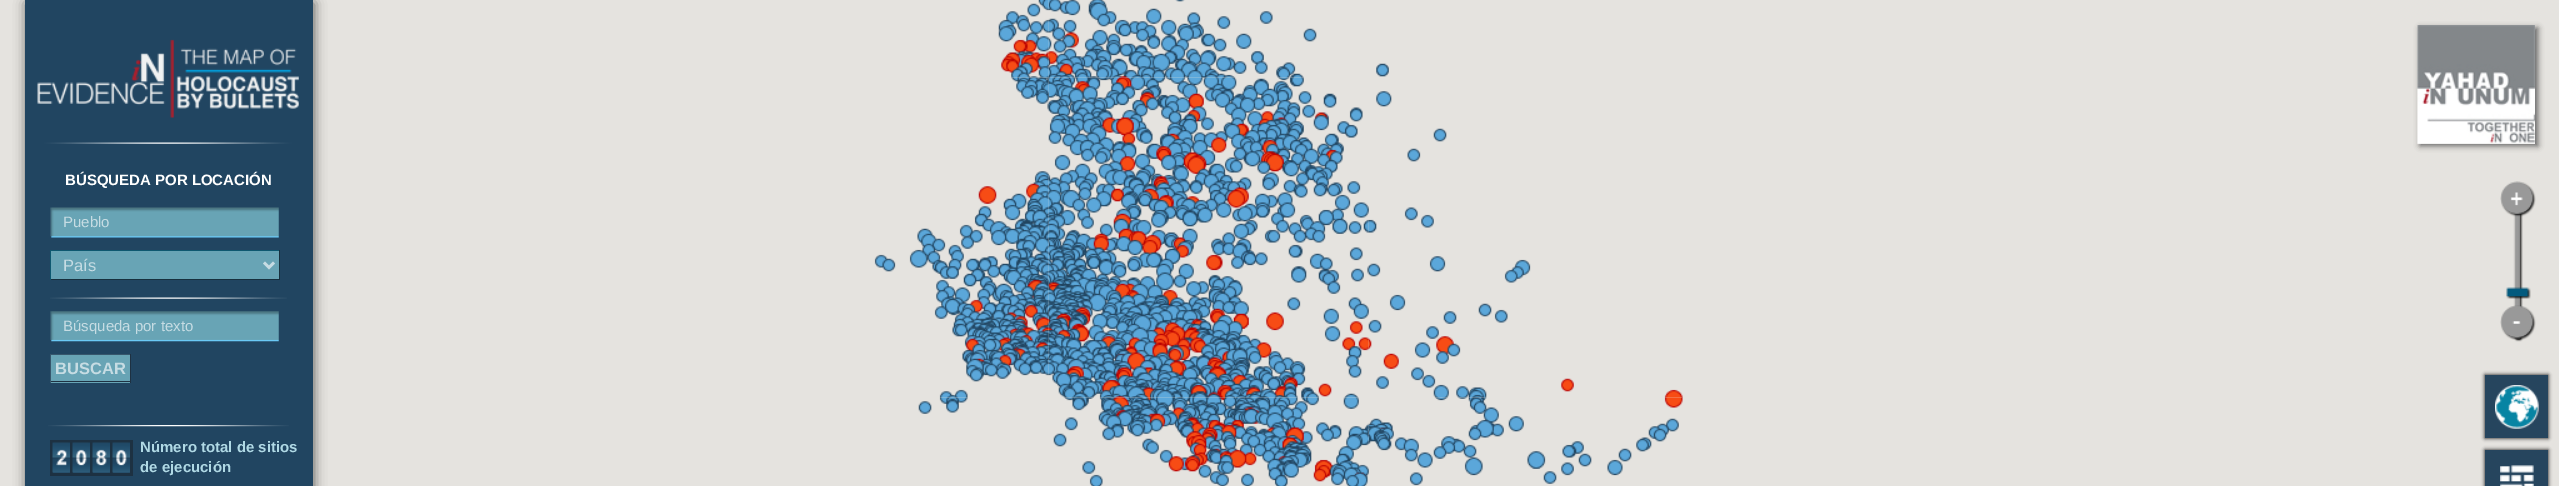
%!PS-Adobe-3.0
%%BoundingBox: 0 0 2559 486
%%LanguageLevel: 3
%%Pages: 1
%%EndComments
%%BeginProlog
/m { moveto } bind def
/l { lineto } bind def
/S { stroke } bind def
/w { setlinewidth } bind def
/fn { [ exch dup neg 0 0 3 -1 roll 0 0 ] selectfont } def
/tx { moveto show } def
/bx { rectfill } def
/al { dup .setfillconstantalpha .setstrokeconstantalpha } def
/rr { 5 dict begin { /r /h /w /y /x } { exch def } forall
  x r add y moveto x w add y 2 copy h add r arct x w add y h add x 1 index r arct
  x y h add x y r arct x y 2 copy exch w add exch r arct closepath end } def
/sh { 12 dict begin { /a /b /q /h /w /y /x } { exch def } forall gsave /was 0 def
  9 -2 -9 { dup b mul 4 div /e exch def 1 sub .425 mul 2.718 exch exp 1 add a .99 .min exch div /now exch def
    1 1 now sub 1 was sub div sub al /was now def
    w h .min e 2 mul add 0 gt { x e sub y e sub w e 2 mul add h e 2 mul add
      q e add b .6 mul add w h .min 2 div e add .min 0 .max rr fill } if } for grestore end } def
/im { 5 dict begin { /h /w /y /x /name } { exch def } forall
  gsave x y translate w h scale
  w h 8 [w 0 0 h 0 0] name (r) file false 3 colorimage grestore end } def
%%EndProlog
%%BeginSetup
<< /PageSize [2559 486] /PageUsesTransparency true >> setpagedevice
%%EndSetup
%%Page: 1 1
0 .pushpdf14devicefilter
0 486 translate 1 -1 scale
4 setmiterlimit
0.898 0.89 0.875 setrgbcolor
0 0 2559 486 bx
(image5.raw) 1368 91 315 307 im
(image4.raw) 1048 77 321 321 im
(image1.raw) 1048 0 269 78 im
(image6.raw) 918 397 50 17 im
(image3.raw) 874 77 175 321 im
(image0.raw) 998 0 51 78 im
(image2.raw) 1376 63 13 14 im
(image8.raw) 1368 397 315 89 im
(image7.raw) 1053 397 316 89 im
(image10.raw) 2513 212 10 130 im
(image9.raw) 2500 181 36 36 im
(image11.raw) 2506 287 25 12 im
(image12.raw) 2500 305 36 35 im
0 setgray
2485 375 63 63 0 2 1 sh
0.149 0.271 0.369 setrgbcolor
2485 375 63 63 bx
(image13.raw) 2495 385 44 44 im
0 setgray
2485 450 63 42 0 2 1 sh
0.149 0.271 0.369 setrgbcolor
2485 450 63 36 bx
(image14.raw) 2500 465 34 21 im
0.396 setgray
2420 28 118 118 0 3 1 sh
(image15.raw) 2417 25 118 119 im
0 setgray
26 3 288 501 0 6 0.6 sh
0.129 0.271 0.38 setrgbcolor
25 0 288 486 bx
(image16.raw) 37 39 262 105 im
/LiberationSans-Bold 15 fn
1 setgray
(BÚSQUEDA POR LOCACIÓN) 65 185 tx
(image17.raw) 50 207 229 31 im
/LiberationSans-Regular 15 fn
0.776 0.863 0.89 setrgbcolor
(Pueblo) 63 227 tx
0.408 0.643 0.71 setrgbcolor
51 251 228 28 bx
0.055 0.345 0.439 setrgbcolor
50 250 230 1 bx
0.09 0.188 0.243 setrgbcolor
279 250 1 30 bx
50 279 230 1 bx
0.055 0.345 0.439 setrgbcolor
50 250 1 30 bx
0.776 0.863 0.89 setrgbcolor
2.5 w
264 262.5 m 269 267.5 l 274 262.5 l S
/LiberationSans-Regular 16.5 fn
(País) 63 271 tx
(image18.raw) 50 297 237 2 im
(image19.raw) 50 311 229 31 im
/LiberationSans-Regular 15 fn
(Búsqueda por texto) 63 331 tx
0.408 0.643 0.71 setrgbcolor
51 355 79 28 bx
0.216 0.341 0.427 setrgbcolor
50 354 81 1 bx
0.118 0.192 0.259 setrgbcolor
130 354 1 29 bx
50 381 81 1 bx
0.216 0.341 0.427 setrgbcolor
50 354 1 29 bx
/LiberationSans-Bold 16.5 fn
0.776 0.863 0.89 setrgbcolor
(BUSCAR) 55 374 tx
(image20.raw) 48 425 241 2 im
0.114 0.192 0.259 setrgbcolor
50 440 83 3 bx
50 473 83 3 bx
50 440 3 35 bx
(image21.raw) 52 442 18 31 im
70 443 3 30 bx
(image22.raw) 72 442 18 31 im
90 443 3 30 bx
(image23.raw) 92 442 18 31 im
110 443 3 30 bx
(image24.raw) 112 442 18 31 im
130 443 3 30 bx
/LiberationSans-Bold 15 fn
0.69 0.851 0.898 setrgbcolor
(Número total de sitios) 140 452 tx
(de ejecución) 140 472 tx
.poppdf14devicefilter showpage
%%EOF
